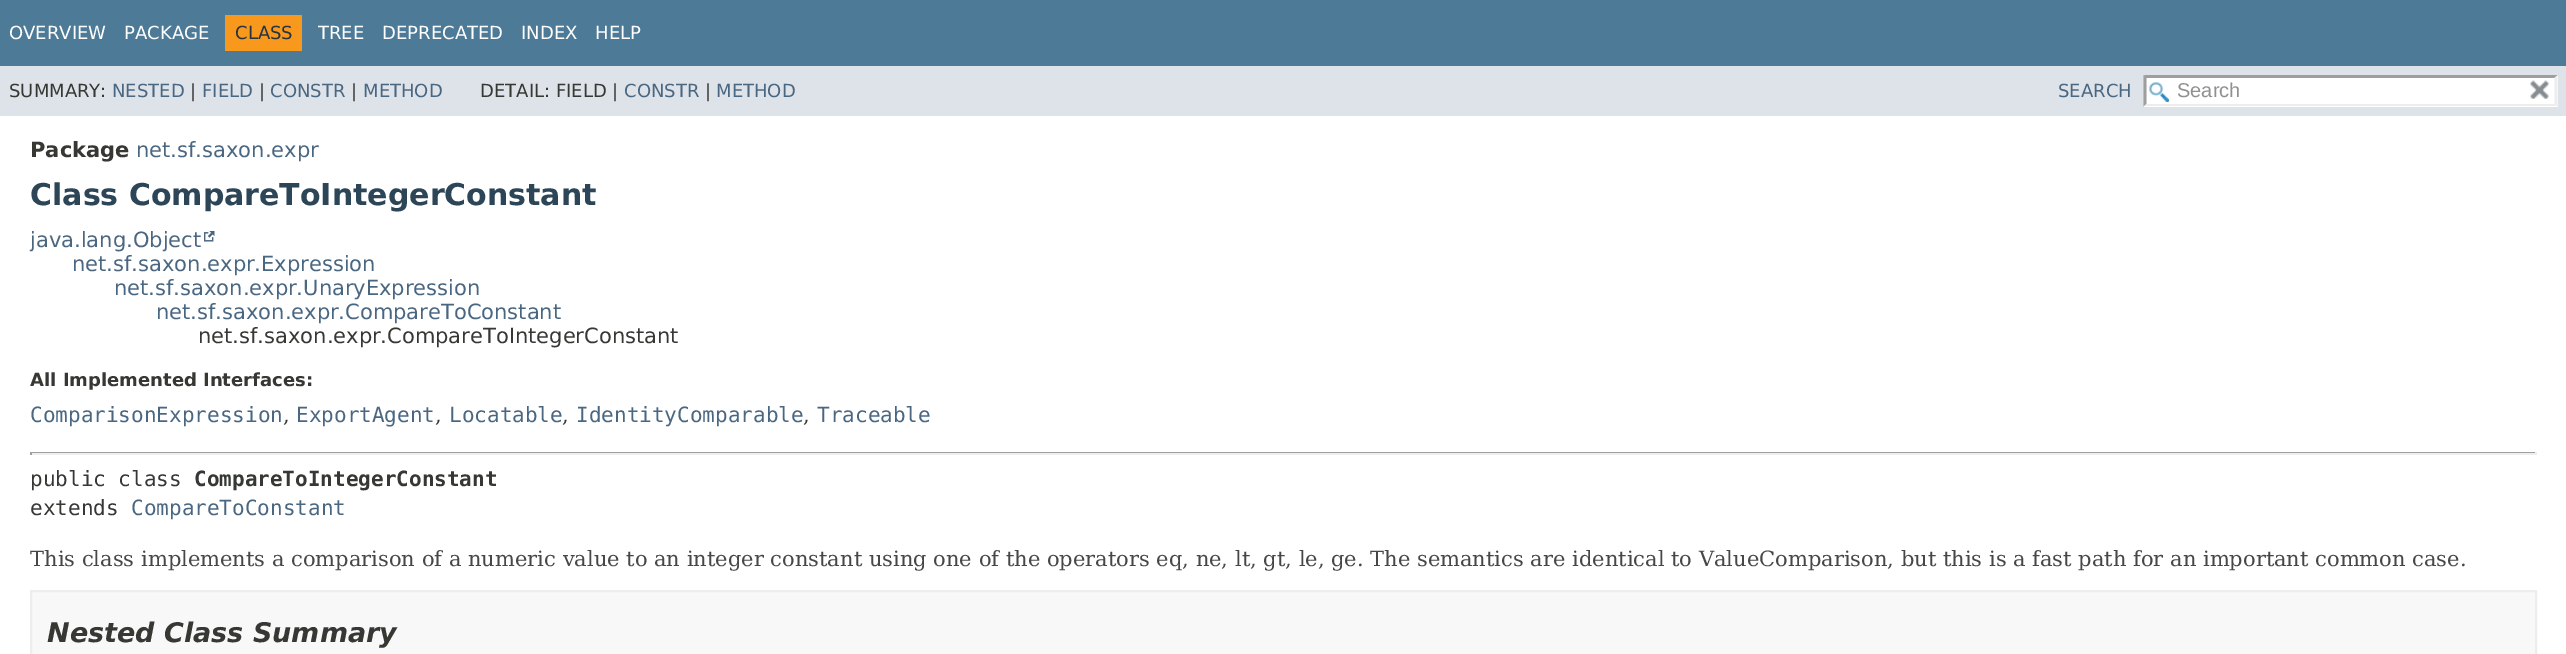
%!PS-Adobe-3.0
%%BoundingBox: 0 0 2566 654
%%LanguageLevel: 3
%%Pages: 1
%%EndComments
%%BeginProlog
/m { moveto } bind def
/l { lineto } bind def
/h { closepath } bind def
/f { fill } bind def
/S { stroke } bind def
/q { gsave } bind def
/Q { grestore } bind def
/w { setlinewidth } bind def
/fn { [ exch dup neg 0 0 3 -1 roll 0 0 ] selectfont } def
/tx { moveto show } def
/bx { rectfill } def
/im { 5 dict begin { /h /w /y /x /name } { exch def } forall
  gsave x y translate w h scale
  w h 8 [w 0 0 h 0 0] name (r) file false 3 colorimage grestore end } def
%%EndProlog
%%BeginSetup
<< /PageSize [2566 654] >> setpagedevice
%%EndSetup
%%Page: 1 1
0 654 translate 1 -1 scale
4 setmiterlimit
1 setgray
0 0 2566 654 bx
0.302 0.478 0.592 setrgbcolor
0 0 2566 66 bx
/DejaVuSans-Regular 18 fn
1 setgray
(OVERVIEW) 9 39 tx
(PACKAGE) 124 39 tx
0.973 0.596 0.114 setrgbcolor
225 15 77 36 bx
0.145 0.204 0.255 setrgbcolor
(CLASS) 235 39 tx
1 setgray
(TREE) 318 39 tx
(DEPRECATED) 382 39 tx
(INDEX) 521 39 tx
(HELP) 595 39 tx
0.871 0.89 0.914 setrgbcolor
0 66 2566 50 bx
0.208 0.22 0.2 setrgbcolor
(SUMMARY:) 9 97 tx
0.29 0.404 0.51 setrgbcolor
(NESTED) 112 97 tx
0.208 0.22 0.2 setrgbcolor
(|) 190 97 tx
0.29 0.404 0.51 setrgbcolor
(FIELD) 202 97 tx
0.208 0.22 0.2 setrgbcolor
(|) 259 97 tx
0.29 0.404 0.51 setrgbcolor
(CONSTR) 270 97 tx
0.208 0.22 0.2 setrgbcolor
(|) 351 97 tx
0.29 0.404 0.51 setrgbcolor
(METHOD) 363 97 tx
0.208 0.22 0.2 setrgbcolor
(DETAIL: FIELD |) 480 97 tx
0.29 0.404 0.51 setrgbcolor
(CONSTR) 624 97 tx
0.208 0.22 0.2 setrgbcolor
(|) 705 97 tx
0.29 0.404 0.51 setrgbcolor
(METHOD) 716 97 tx
(SEARCH) 2058 97 tx
1 setgray
2144 75 414 32 bx
(image0.raw) 2149 82 20 20 im
0.62 setgray
2144 75 m 2558 75 l 2554 78 l 2146 78 l h f
0.929 setgray
2557.5 75 m 2557.5 106.5 l 2554.5 103.5 l 2554.5 78 l h f
2558 106 m 2144 106 l 2146 104 l 2554 104 l h f
0.62 setgray
2143.5 106.5 m 2143.5 75 l 2146.5 78 l 2146.5 103.5 l h f
/LiberationSans-Regular 20 fn
0.565 setgray
(Search) 2177 97 tx
(image1.raw) 2530 80 19 19 im
/DejaVuSans-Bold 21 fn
0.208 0.22 0.2 setrgbcolor
(Package) 30 157 tx
/DejaVuSans-Regular 21 fn
0.29 0.404 0.51 setrgbcolor
(net.sf.saxon.expr) 136 157 tx
/DejaVuSans-Bold 30 fn
0.173 0.271 0.341 setrgbcolor
(Class CompareToIntegerConstant) 30 205 tx
/DejaVuSans-Regular 21 fn
0.29 0.404 0.51 setrgbcolor
(java.lang.Object) 30 247 tx
(image2.raw) 204 231 11 11 im
(net.sf.saxon.expr.Expression) 72 271 tx
(net.sf.saxon.expr.UnaryExpression) 114 295 tx
(net.sf.saxon.expr.CompareToConstant) 156 319 tx
0.208 0.22 0.2 setrgbcolor
(net.sf.saxon.expr.CompareToIntegerConstant) 198 343 tx
/DejaVuSans-Bold 18 fn
(All Implemented Interfaces:) 30 386 tx
/DejaVuSansMono-Regular 21 fn
0.29 0.404 0.51 setrgbcolor
(ComparisonExpression) 30 422 tx
/DejaVuSerif-Regular 21 fn
0.208 0.22 0.2 setrgbcolor
(,) 283 422 tx
/DejaVuSansMono-Regular 21 fn
0.29 0.404 0.51 setrgbcolor
(ExportAgent) 296 422 tx
/DejaVuSerif-Regular 21 fn
0.208 0.22 0.2 setrgbcolor
(,) 435 422 tx
/DejaVuSansMono-Regular 21 fn
0.29 0.404 0.51 setrgbcolor
(Locatable) 449 422 tx
/DejaVuSerif-Regular 21 fn
0.208 0.22 0.2 setrgbcolor
(,) 562 422 tx
/DejaVuSansMono-Regular 21 fn
0.29 0.404 0.51 setrgbcolor
(IdentityComparable) 576 422 tx
/DejaVuSerif-Regular 21 fn
0.208 0.22 0.2 setrgbcolor
(,) 803 422 tx
/DejaVuSansMono-Regular 21 fn
0.29 0.404 0.51 setrgbcolor
(Traceable) 817 422 tx
0.624 setgray
30 452 2507 1 bx
0.933 setgray
2535 452 2 3 bx
30 453 2507 2 bx
0.624 setgray
30 452 2 3 bx
0.208 0.22 0.2 setrgbcolor
(public class) 30 486 tx
/DejaVuSansMono-Bold 21 fn
(CompareToIntegerConstant) 194 486 tx
/DejaVuSansMono-Regular 21 fn
(extends) 30 515 tx
0.29 0.404 0.51 setrgbcolor
(CompareToConstant) 131 515 tx
/DejaVuSerif-Regular 21 fn
0.278 setgray
(This class implements a comparison of a numeric value to an integer constant using one of the operators eq, ne, lt, gt, le, ge. The semantics are identical to ValueComparison, but this is a fast path for an important common case.) 30 566 tx
0.973 setgray
31 591 m 2536 591 l 2536 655 l 31 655 l h q f Q
0.929 setgray
2 w
S
/DejaVuSans-BoldItalic 27 fn
0.208 0.22 0.2 setrgbcolor
(Nested Class Summary) 47 642 tx
showpage
%%EOF
